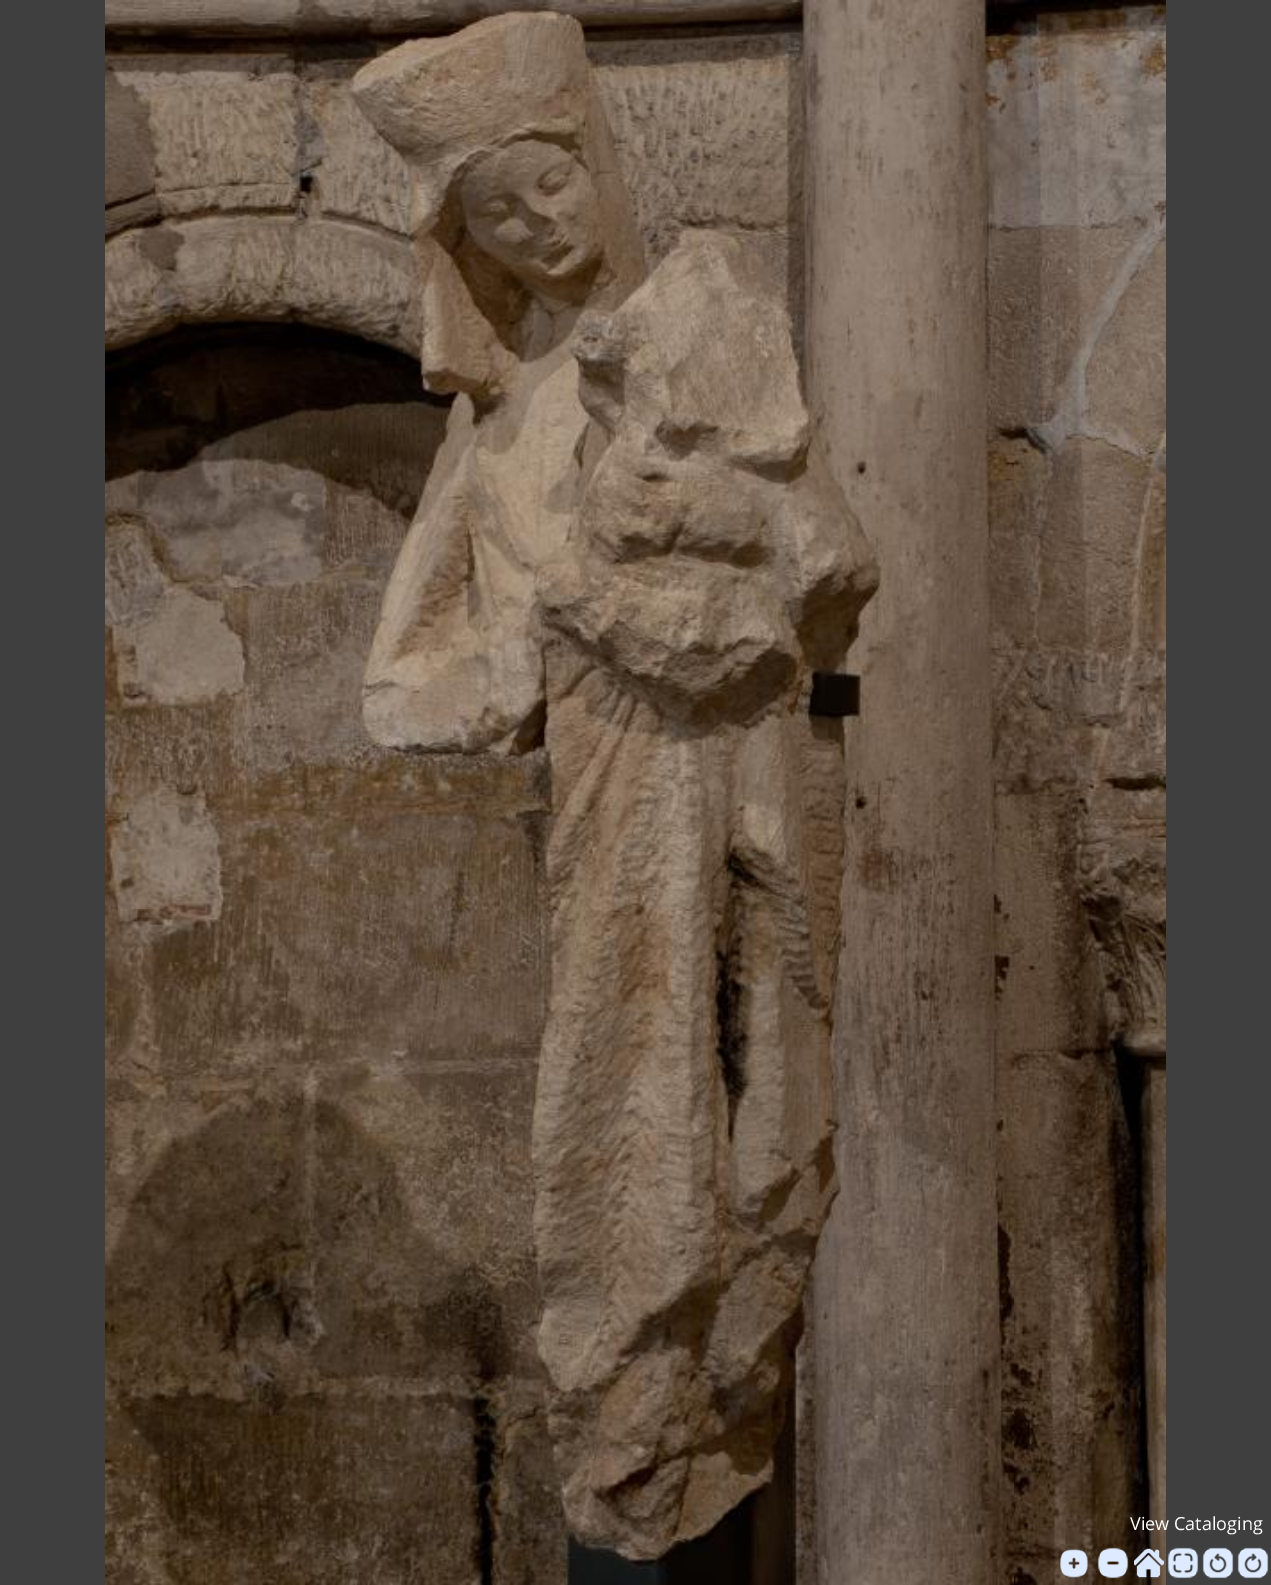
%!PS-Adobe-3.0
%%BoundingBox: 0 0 1271 1585
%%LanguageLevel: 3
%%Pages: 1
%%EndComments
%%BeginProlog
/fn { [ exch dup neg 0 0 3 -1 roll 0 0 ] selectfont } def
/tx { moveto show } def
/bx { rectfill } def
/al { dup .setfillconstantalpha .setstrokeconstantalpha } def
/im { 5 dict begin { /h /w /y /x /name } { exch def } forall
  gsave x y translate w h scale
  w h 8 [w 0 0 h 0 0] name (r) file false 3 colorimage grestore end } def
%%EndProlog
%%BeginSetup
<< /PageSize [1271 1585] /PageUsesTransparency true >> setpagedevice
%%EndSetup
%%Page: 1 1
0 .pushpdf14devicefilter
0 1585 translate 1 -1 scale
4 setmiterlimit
0.247 setgray
0 0 1271 1585 bx
(image0.raw) 105 0 1061 1585 im
(image1.raw) 1060 1549 28 29 im
(image2.raw) 1060 1550 28 27 im
(image3.raw) 1097 1547 32 32 im
(image4.raw) 1098 1548 30 30 im
(image5.raw) 1134 1548 30 30 im
0.03 al
1 setgray
1147 1569 3 1 bx
1 al
(image6.raw) 1167 1547 32 32 im
(image7.raw) 1168 1548 30 30 im
(image8.raw) 1202 1547 32 32 im
(image9.raw) 1203 1548 30 30 im
(image10.raw) 1237 1547 32 32 im
(image11.raw) 1238 1548 30 30 im
/OpenSans-Regular 18 fn
(View Cataloging) 1130 1530 tx
.poppdf14devicefilter showpage
%%EOF
